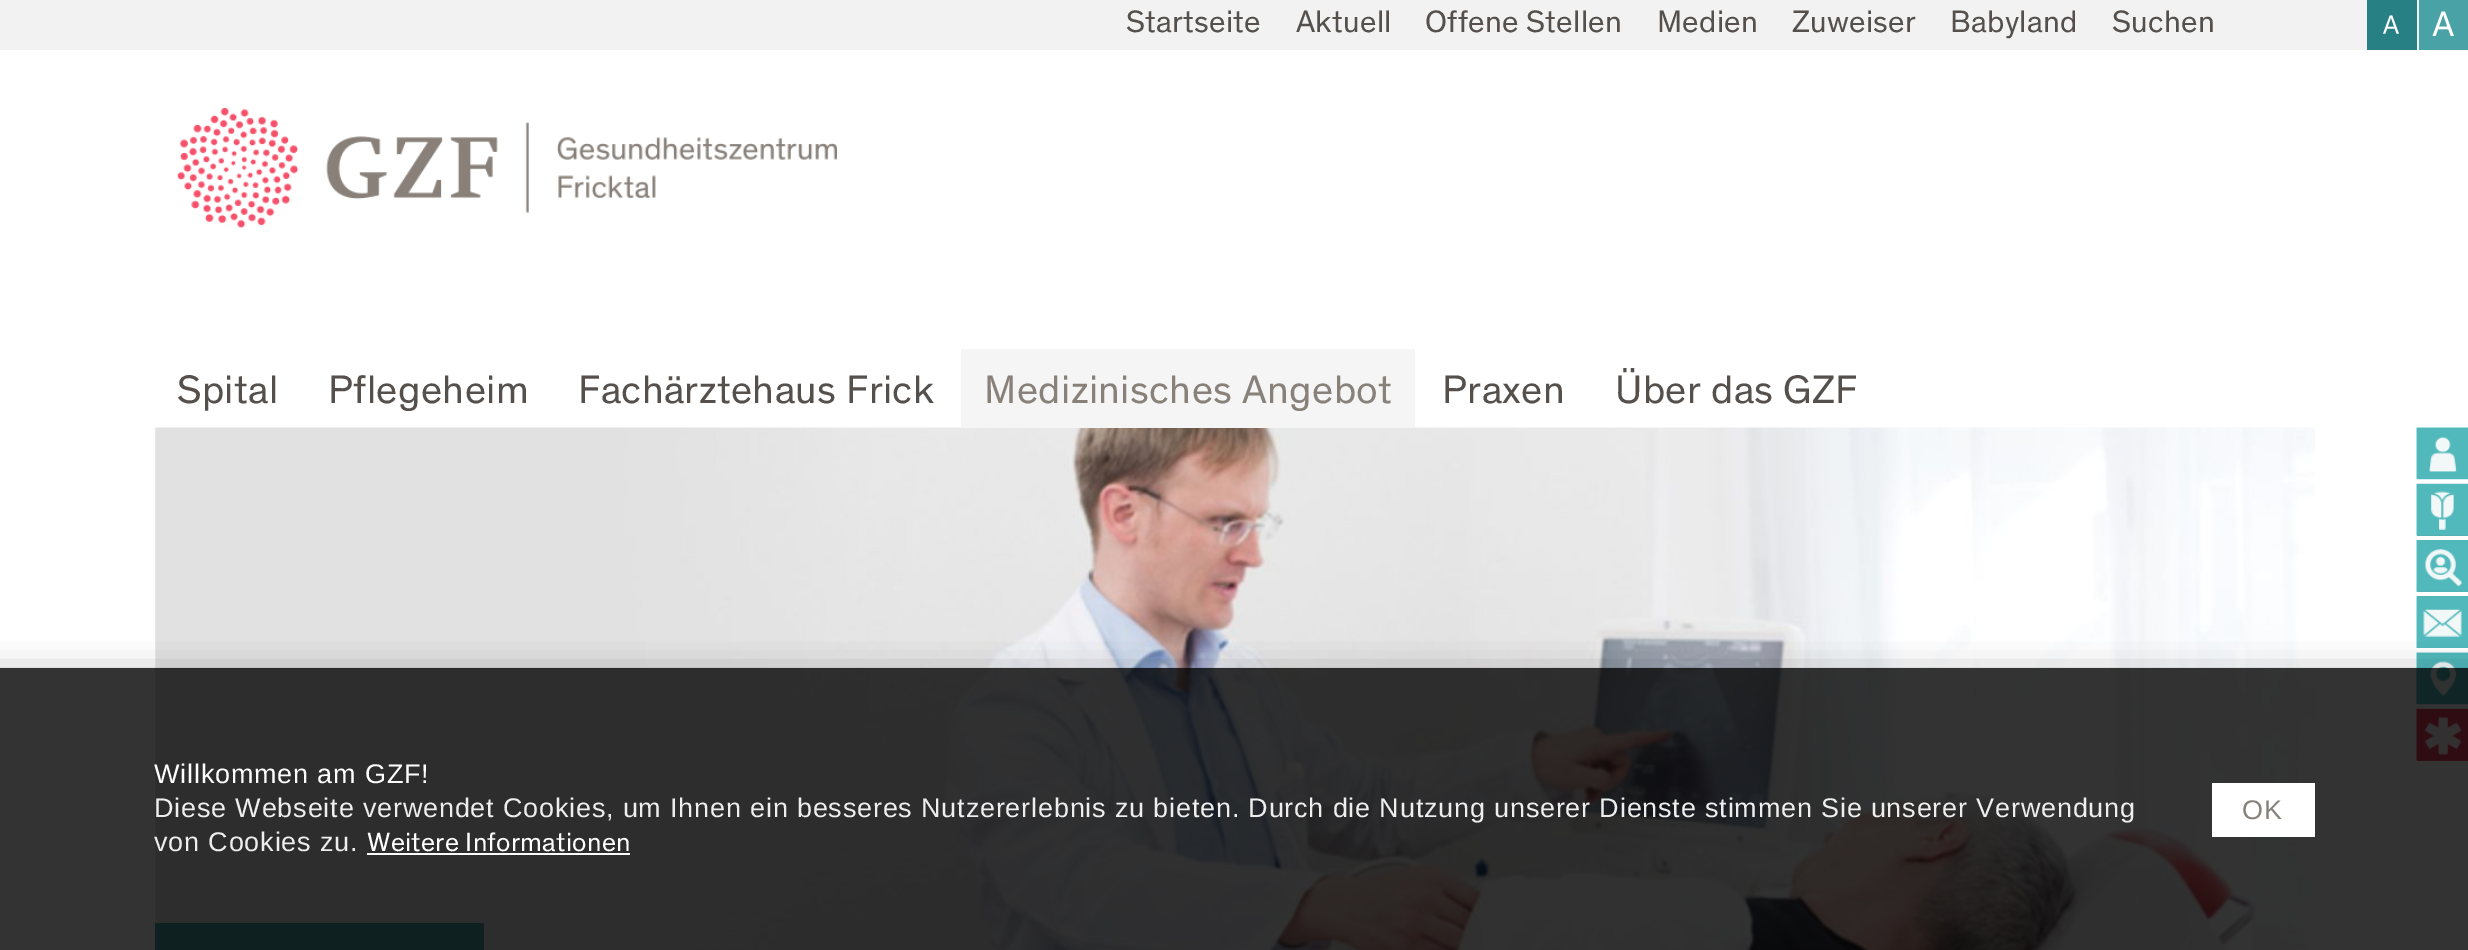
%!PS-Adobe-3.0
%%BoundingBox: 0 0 2468 950
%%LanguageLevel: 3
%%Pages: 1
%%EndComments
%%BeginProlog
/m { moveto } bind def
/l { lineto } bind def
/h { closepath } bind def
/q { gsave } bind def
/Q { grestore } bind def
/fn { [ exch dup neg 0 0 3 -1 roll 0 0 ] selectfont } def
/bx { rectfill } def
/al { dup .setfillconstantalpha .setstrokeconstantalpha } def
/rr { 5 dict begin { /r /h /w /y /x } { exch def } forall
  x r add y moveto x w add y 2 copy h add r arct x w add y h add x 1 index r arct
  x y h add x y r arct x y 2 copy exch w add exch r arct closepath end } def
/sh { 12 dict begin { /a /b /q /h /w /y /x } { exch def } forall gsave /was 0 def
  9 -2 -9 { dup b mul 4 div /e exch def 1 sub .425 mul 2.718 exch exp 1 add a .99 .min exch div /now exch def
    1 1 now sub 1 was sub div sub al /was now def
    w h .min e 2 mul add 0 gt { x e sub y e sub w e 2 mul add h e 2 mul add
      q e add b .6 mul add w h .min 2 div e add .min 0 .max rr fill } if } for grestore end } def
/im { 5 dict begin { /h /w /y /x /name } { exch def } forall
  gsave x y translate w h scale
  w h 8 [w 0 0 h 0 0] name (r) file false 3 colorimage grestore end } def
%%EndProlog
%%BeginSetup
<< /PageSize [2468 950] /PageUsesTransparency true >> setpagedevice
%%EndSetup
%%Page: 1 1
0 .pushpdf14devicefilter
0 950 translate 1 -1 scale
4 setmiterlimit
1 setgray
0 0 2468 950 bx
0.949 setgray
0 0 2367 50 bx
/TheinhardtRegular-Regular 31.5 fn
0.333 0.314 0.298 setrgbcolor
1126 32 m 0.25 0 (Startseite) ashow
1296 32 m 0.25 0 (Aktuell) ashow
1425 32 m 0.25 0 (Offene Stellen) ashow
1657 32 m 0.25 0 (Medien) ashow
1792 32 m 0.25 0 (Zuweiser) ashow
1950 32 m 0.25 0 (Babyland) ashow
2112 32 m 0.25 0 (Suchen) ashow
0.153 0.502 0.514 setrgbcolor
2367 0 50 50 bx
0.949 setgray
2417 0 2 50 bx
(image0.raw) 2383 15 16 19 im
0.286 0.635 0.647 setrgbcolor
2419 0 49 50 bx
(image1.raw) 2432 11 22 25 im
(image2.raw) 177 108 660 120 im
/TheinhardtRegular-Regular 40.5 fn
0.333 0.314 0.298 setrgbcolor
177 403 m 0.4 0 (Spital) ashow
328 403 m 0.4 0 (Pflegeheim) ashow
578 403 m 0.4 0 (Fachärztehaus Frick) ashow
(image3.raw) 155 427 2160 523 im
0.965 0.961 0.961 setrgbcolor
961 349 454 79 bx
0.533 0.506 0.478 setrgbcolor
984 403 m 0.4 0 (Medizinisches Angebot) ashow
0.333 0.314 0.298 setrgbcolor
1442 403 m 0.4 0 (Praxen) ashow
1615 403 m 0.4 0 (Über das GZF) ashow
0.286 0.635 0.647 setrgbcolor
155 923 329 27 bx
(image4.raw) 2416 427 52 53 im
0.341 0.663 0.675 setrgbcolor
2417 484 51 52 bx
(image5.raw) 2416 483 52 53 im
2417 540 51 52 bx
(image6.raw) 2416 540 52 52 im
2417 596 51 52 bx
(image7.raw) 2416 596 52 52 im
(image8.raw) 2416 652 52 53 im
0.969 0.373 0.463 setrgbcolor
2417 709 51 52 bx
(image9.raw) 2416 708 52 53 im
q
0 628 m 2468 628 l 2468 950 l 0 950 l h 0 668 m 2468 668 l 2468 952 l 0 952 l h eoclip newpath
0 setgray
-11 680 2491 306 0 17 0.5 sh
Q
0.8 al
0 setgray
0 668 2468 282 bx
/LiberationSans-Regular 27 fn
1 al
1 setgray
154 783 m 0.81 0 (Willkommen am GZF!) ashow
0.933 setgray
154 817 m 0.81 0 (Diese Webseite verwendet Cookies, um Ihnen ein besseres Nutzererlebnis zu bieten. Durch die Nutzung unserer Dienste stimmen Sie unserer Verwendung) ashow
154 851 m 0.81 0 (von Cookies zu.) ashow
/TheinhardtRegular-Regular 27 fn
1 setgray
367 851 m 0.25 0 (Weitere Informationen) ashow
367 853 263 2 bx
2212 783 103 54 bx
/LiberationSans-Regular 27 fn
0.533 0.506 0.478 setrgbcolor
2242 819 m 0.81 0 (OK) ashow
.poppdf14devicefilter showpage
%%EOF
